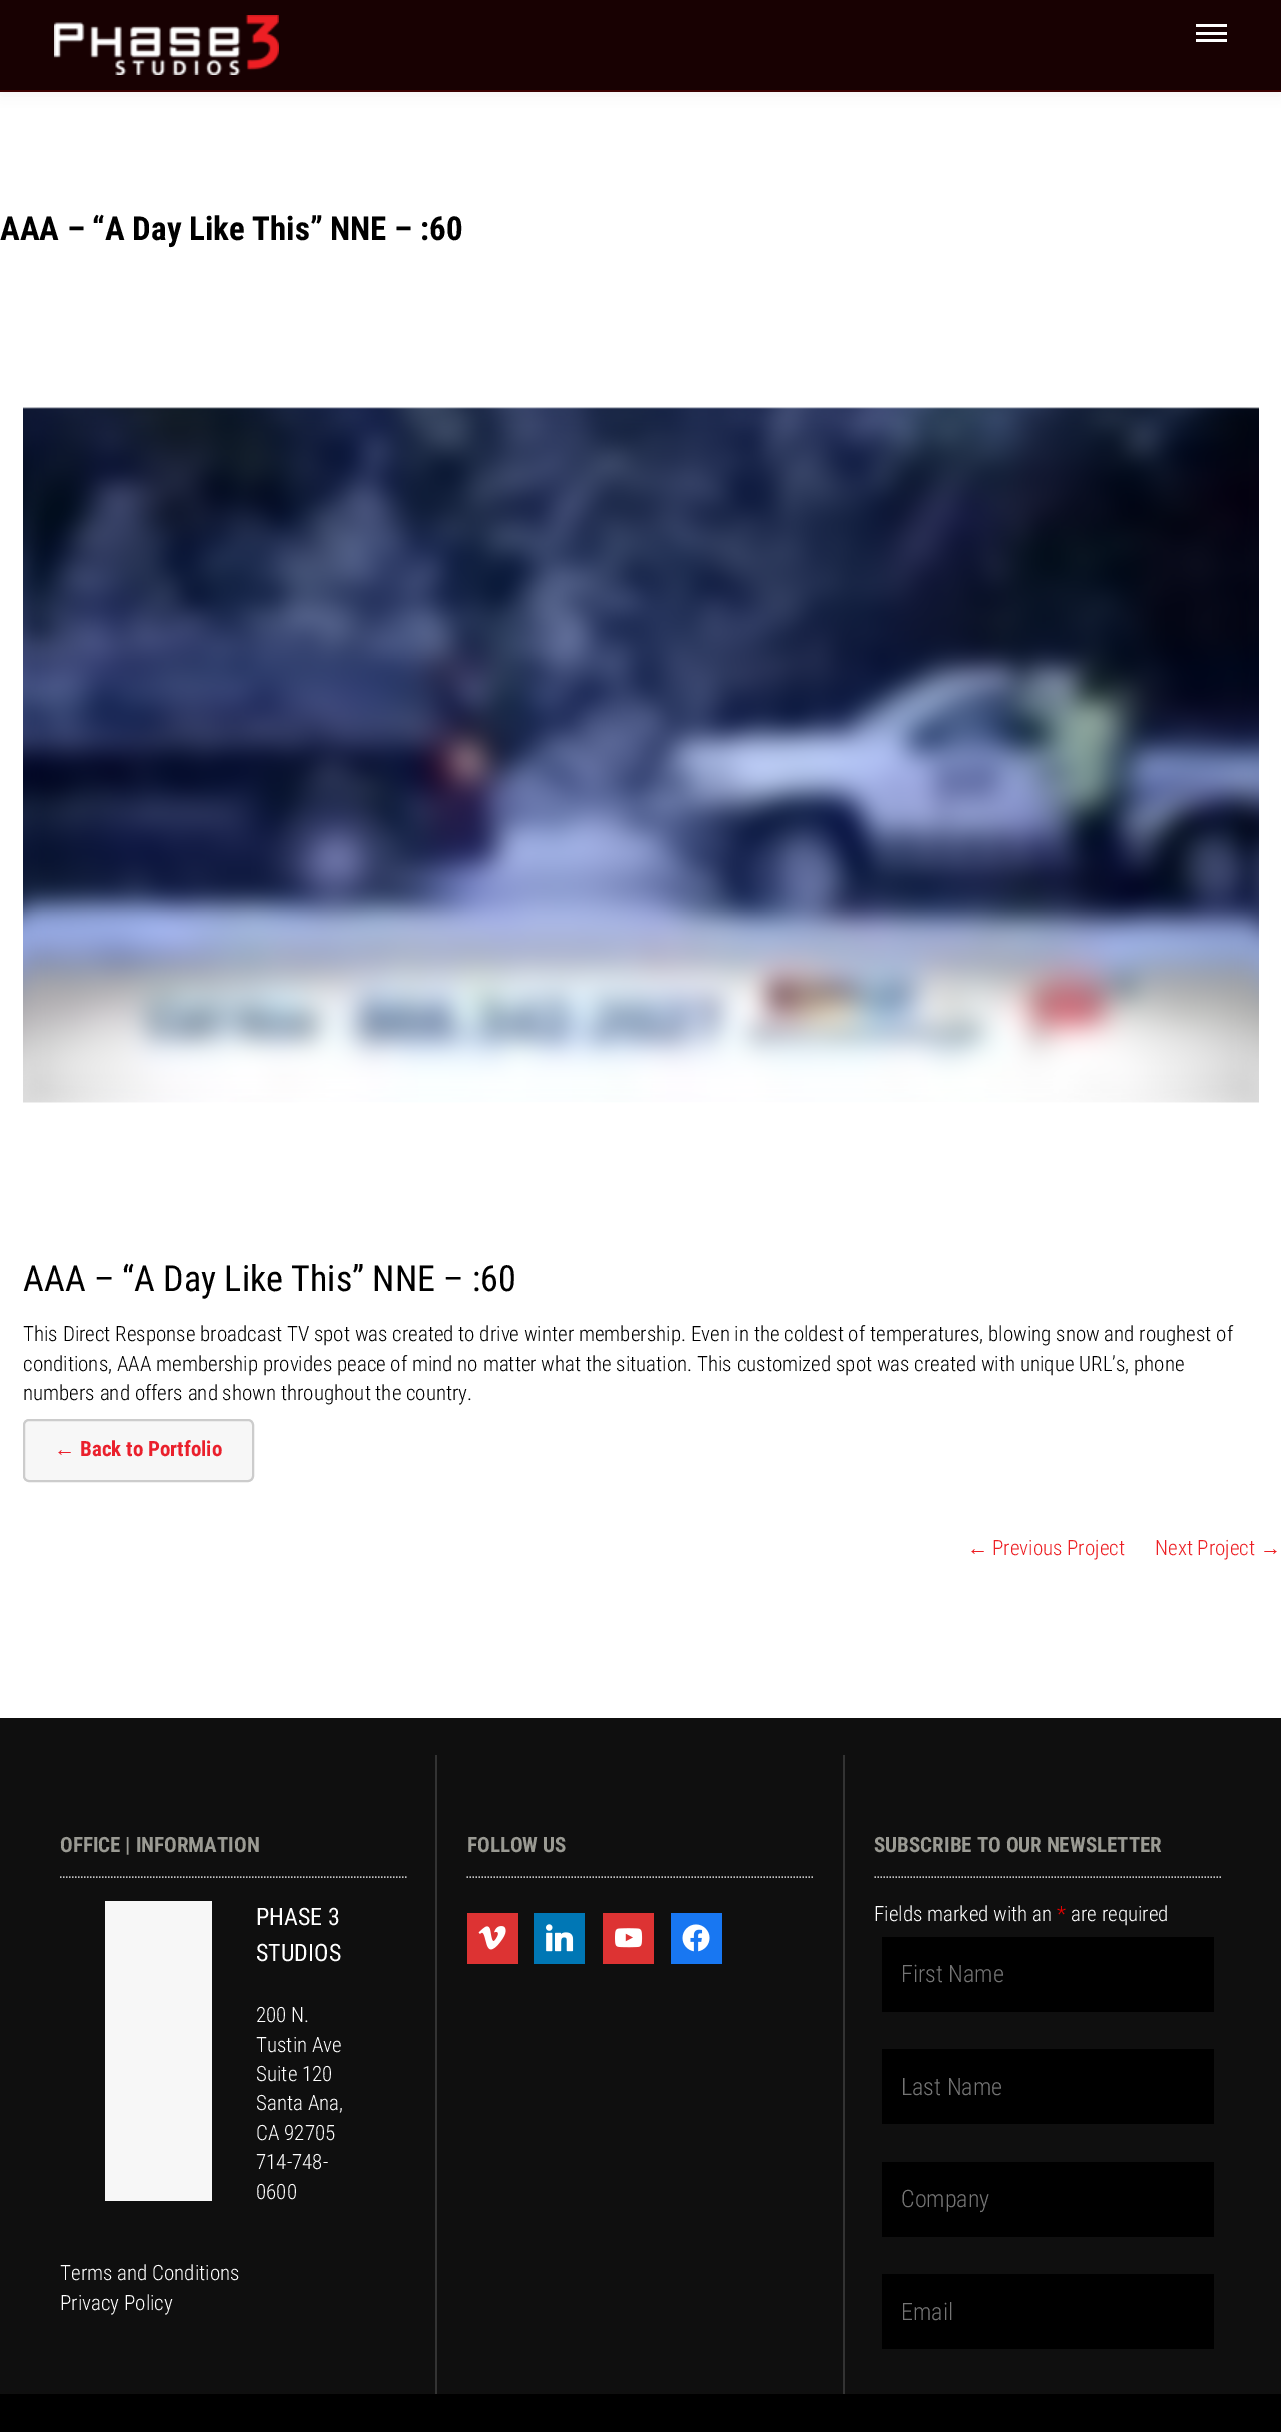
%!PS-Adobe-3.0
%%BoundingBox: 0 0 1281 2432
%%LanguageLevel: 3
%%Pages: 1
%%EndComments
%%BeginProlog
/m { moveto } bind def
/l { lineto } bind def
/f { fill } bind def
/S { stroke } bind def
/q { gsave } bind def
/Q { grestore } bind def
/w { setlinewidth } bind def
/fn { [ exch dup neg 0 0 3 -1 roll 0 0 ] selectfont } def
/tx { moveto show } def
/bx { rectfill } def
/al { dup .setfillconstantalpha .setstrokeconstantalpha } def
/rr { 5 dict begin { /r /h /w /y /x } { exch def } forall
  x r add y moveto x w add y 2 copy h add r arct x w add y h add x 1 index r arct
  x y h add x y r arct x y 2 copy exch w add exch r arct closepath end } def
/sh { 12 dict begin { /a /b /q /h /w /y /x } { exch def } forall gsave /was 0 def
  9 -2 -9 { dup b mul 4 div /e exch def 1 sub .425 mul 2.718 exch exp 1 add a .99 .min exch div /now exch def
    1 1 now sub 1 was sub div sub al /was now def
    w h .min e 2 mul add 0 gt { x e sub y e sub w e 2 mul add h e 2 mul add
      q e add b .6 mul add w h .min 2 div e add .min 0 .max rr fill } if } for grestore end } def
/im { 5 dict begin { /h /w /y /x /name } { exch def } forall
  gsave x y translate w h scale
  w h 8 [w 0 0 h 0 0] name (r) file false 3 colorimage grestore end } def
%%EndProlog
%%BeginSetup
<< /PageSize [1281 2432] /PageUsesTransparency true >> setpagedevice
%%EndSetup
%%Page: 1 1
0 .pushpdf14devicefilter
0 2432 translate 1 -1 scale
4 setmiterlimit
1 setgray
0 0 1281 2432 bx
0 setgray
0 3 1281 92 0 7.5 0.05 sh
0.231 0 0 setrgbcolor
0 90 1281 2 bx
0.094 0.004 0.008 setrgbcolor
0 0 1281 90 bx
(image0.raw) 54 15 225 60 im
1 setgray
1196 32 31 3 bx
1196 24 31 3 bx
1196 39 31 3 bx
/RobotoCondensed-Bold 33 fn
0 setgray
(AAA – “A Day Like This” NNE – :60) 0 240 tx
(image1.raw) 23 407 1236 696 im
/RobotoCondensed-Regular 36 fn
(AAA – “A Day Like This” NNE – :60) 23 1291 tx
/RobotoCondensed-Light 21 fn
(This Direct Response broadcast TV spot was created to drive winter membership. Even in the coldest of temperatures, blowing snow and roughest of) 23 1341 tx
(conditions, AAA membership provides peace of mind no matter what the situation. This customized spot was created with unique URL’s, phone) 23 1371 tx
(numbers and offers and shown throughout the country.) 23 1400 tx
0.969 setgray
24 1420 229 61 5 rr q f Q
0.8 setgray
2 w
S
/LiberationSerif-Bold 21 fn
0.918 0.125 0.173 setrgbcolor
(←) 54 1456 tx
/RobotoCondensed-Bold 21 fn
(Back to Portfolio) 80 1456 tx
/LiberationSerif-Regular 21 fn
0.929 0.122 0.141 setrgbcolor
(←) 967 1555 tx
/RobotoCondensed-Light 21 fn
(Previous Project) 992 1555 tx
(Next Project) 1155 1555 tx
/LiberationSerif-Regular 21 fn
(→) 1260 1555 tx
0.059 setgray
0 1718 1281 676 bx
0.761 setgray
1.5 w
[1.5 1.5] 0 setdash
60 1877 m 406.5 1877 l S
/RobotoCondensed-Bold 21 fn
0.604 0.604 0.576 setrgbcolor
(OFFICE | INFORMATION) 60 1852 tx
0.969 setgray
105 1901 107 300 bx
/RobotoCondensed-Regular 24 fn
1 setgray
(PHASE 3) 256 1925 tx
(STUDIOS) 256 1961 tx
/RobotoCondensed-Light 21 fn
(200 N.) 256 2022 tx
(Tustin Ave) 256 2052 tx
(Suite 120) 256 2081 tx
(Santa Ana,) 256 2110 tx
(CA 92705) 256 2140 tx
(714-748-) 256 2169 tx
(0600) 256 2199 tx
(Terms and Conditions) 60 2280 tx
(Privacy Policy) 60 2310 tx
0.2 setgray
435 1755 2 639 bx
0.761 setgray
466.5 1877 m 814.5 1877 l S
/RobotoCondensed-Bold 21 fn
0.604 0.604 0.576 setrgbcolor
(FOLLOW US) 467 1852 tx
0.867 0.2 0.2 setrgbcolor
467 1913 51 51 bx
(image2.raw) 478 1926 28 24 im
0 0.467 0.71 setrgbcolor
534 1913 51 51 bx
(image3.raw) 546 1924 28 28 im
0.867 0.2 0.2 setrgbcolor
603 1913 51 51 bx
(image4.raw) 615 1928 28 20 im
0.094 0.467 0.949 setrgbcolor
671 1913 51 51 bx
(image5.raw) 682 1924 28 28 im
0.2 setgray
843 1755 2 639 bx
0.761 setgray
874.5 1877 m 1221 1877 l S
0.604 0.604 0.576 setrgbcolor
(SUBSCRIBE TO OUR NEWSLETTER) 874 1852 tx
/RobotoCondensed-Light 21 fn
1 setgray
(Fields marked with an) 874 1921 tx
0.91 0 0 setrgbcolor
(*) 1057 1921 tx
1 setgray
(are required) 1071 1921 tx
0 setgray
882 1937 332 75 bx
/RobotoCondensed-Light 24 fn
0.459 setgray
(First Name) 901 1982 tx
0 setgray
882 2049 332 75 bx
0.459 setgray
(Last Name) 901 2095 tx
0 setgray
882 2162 332 75 bx
0.459 setgray
(Company) 901 2207 tx
0 setgray
882 2274 332 75 bx
0.459 setgray
(Email) 901 2320 tx
0 setgray
0 2394 1281 38 bx
.poppdf14devicefilter showpage
%%EOF
